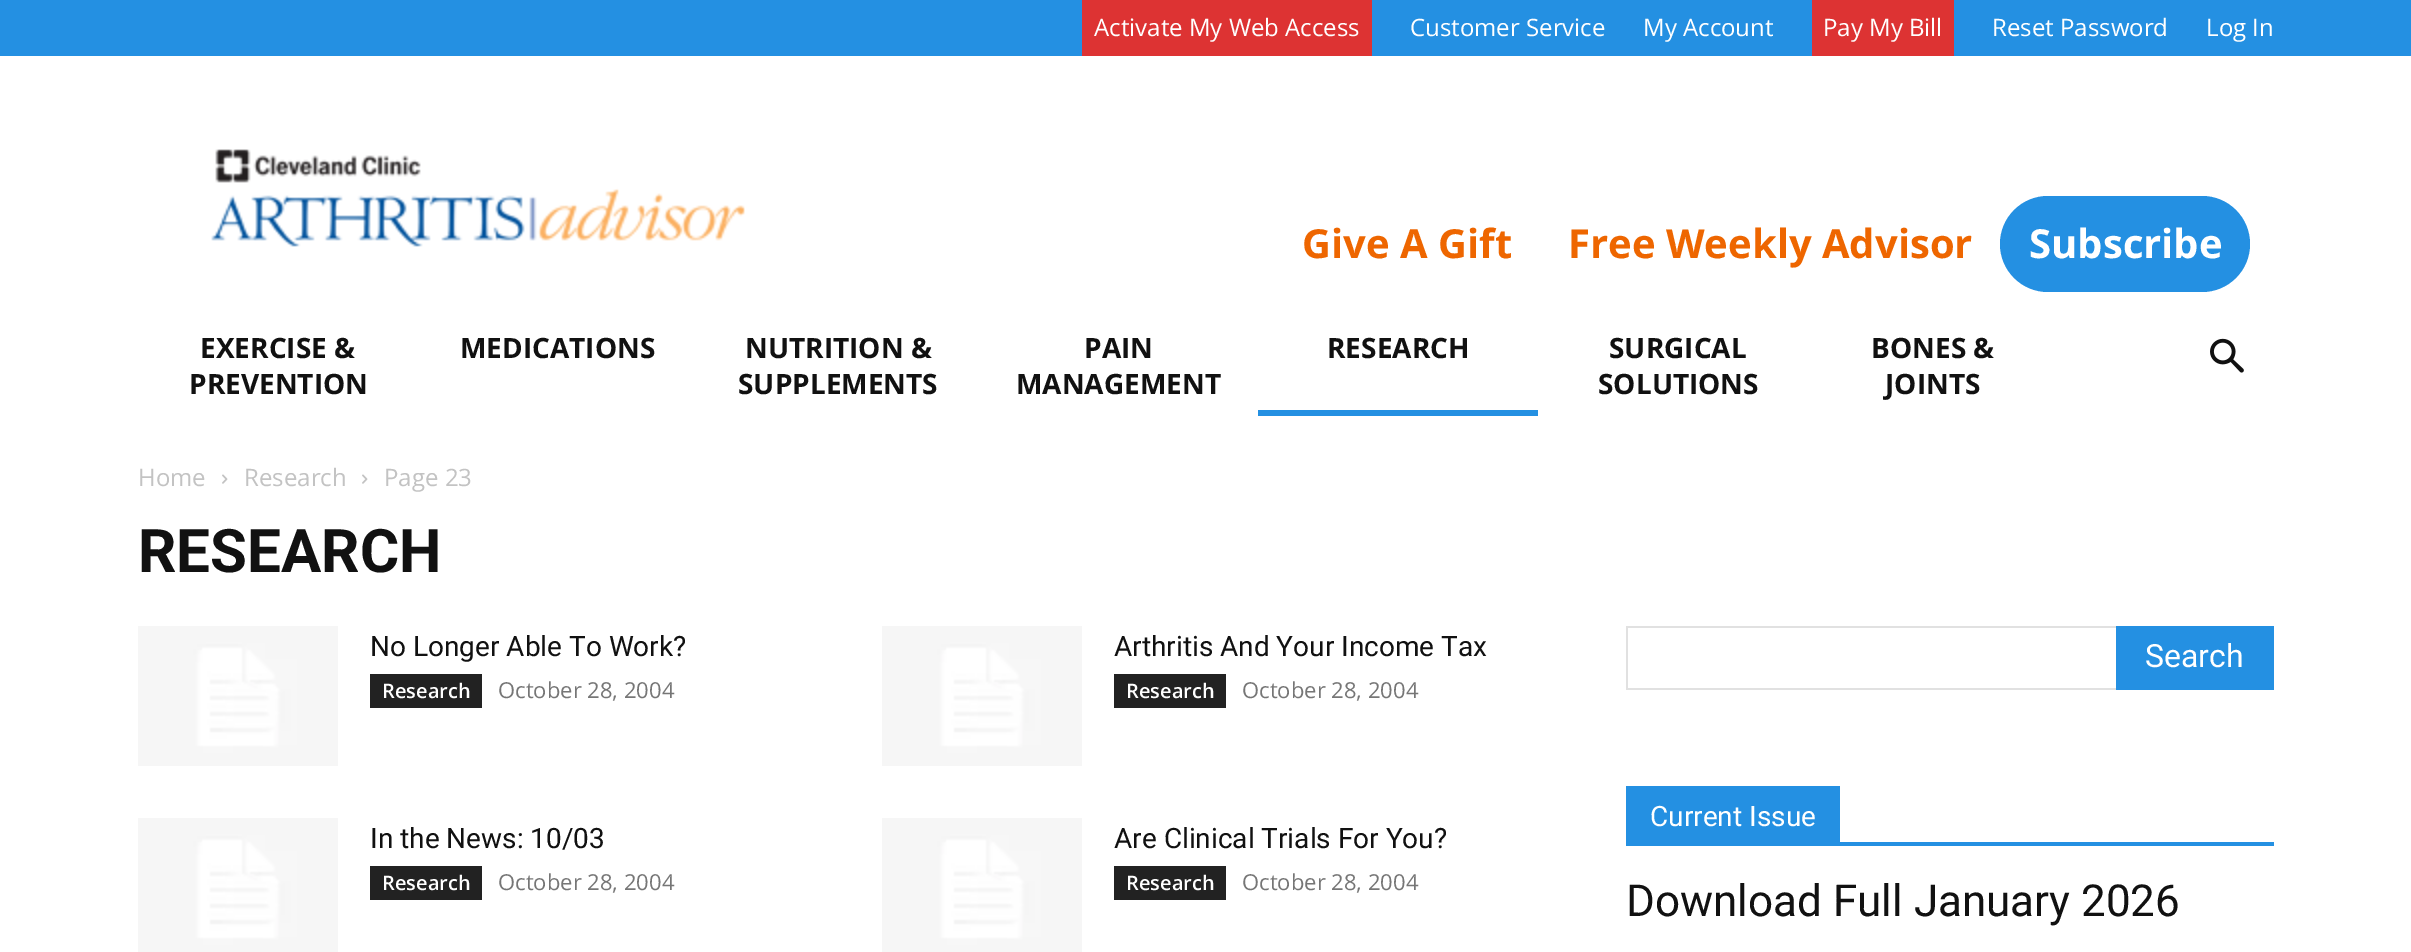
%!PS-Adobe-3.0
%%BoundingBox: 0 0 2411 952
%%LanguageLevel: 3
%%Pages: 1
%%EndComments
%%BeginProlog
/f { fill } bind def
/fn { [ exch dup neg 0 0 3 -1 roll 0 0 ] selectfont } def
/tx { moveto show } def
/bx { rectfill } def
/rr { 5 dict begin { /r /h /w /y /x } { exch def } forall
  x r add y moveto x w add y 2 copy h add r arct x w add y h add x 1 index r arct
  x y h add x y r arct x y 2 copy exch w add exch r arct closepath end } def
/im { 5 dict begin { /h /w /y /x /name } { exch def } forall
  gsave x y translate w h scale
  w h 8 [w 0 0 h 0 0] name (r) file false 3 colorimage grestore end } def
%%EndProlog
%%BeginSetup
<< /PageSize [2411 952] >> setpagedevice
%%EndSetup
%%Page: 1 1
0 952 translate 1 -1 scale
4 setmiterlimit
1 setgray
0 0 2411 952 bx
0.141 0.565 0.886 setrgbcolor
0 0 2411 56 bx
0.867 0.2 0.2 setrgbcolor
1082 0 290 56 bx
/OpenSans-Regular 24 fn
1 setgray
(Activate My Web Access) 1094 36 tx
(Customer Service) 1410 36 tx
(My Account) 1643 36 tx
0.867 0.2 0.2 setrgbcolor
1812 0 142 56 bx
1 setgray
(Pay My Bill) 1823 36 tx
(Reset Password) 1992 36 tx
(Log In) 2206 36 tx
(image0.raw) 211 149 534 98 im
/OpenSans-Bold 40 fn
0.933 0.4 0 setrgbcolor
(Give A Gift) 1302 258 tx
(Free Weekly Advisor) 1568 258 tx
0.141 0.565 0.886 setrgbcolor
2000 196 250 96 48 rr f
1 setgray
(Subscribe) 2029 258 tx
/OpenSans-Bold 28 fn
0.067 setgray
(EXERCISE &) 200 358 tx
(PREVENTION) 189 394 tx
(MEDICATIONS) 460 358 tx
(NUTRITION &) 745 358 tx
(SUPPLEMENTS) 738 394 tx
(PAIN) 1084 358 tx
(MANAGEMENT) 1016 394 tx
(RESEARCH) 1327 358 tx
0.141 0.565 0.886 setrgbcolor
1258 410 280 6 bx
0.067 setgray
(SURGICAL) 1609 358 tx
(SOLUTIONS) 1598 394 tx
(BONES &) 1871 358 tx
(JOINTS) 1885 394 tx
(image1.raw) 2210 338 34 35 im
/OpenSans-Regular 24 fn
0.765 setgray
(Home) 138 486 tx
(image2.raw) 222 474 6 10 im
(Research) 244 486 tx
(image2.raw) 362 474 6 10 im
(Page 23) 384 486 tx
/Roboto-Bold 60 fn
0.067 setgray
(RESEARCH) 138 572 tx
(image3.raw) 138 626 200 140 im
/Roboto-Regular 28 fn
(No Longer Able To Work?) 370 656 tx
0.133 setgray
370 674 112 34 bx
/OpenSans-SemiBold 20 fn
1 setgray
(Research) 382 698 tx
/OpenSans-Regular 22 fn
0.463 setgray
(October 28, 2004) 498 698 tx
(image3.raw) 882 626 200 140 im
/Roboto-Regular 28 fn
0.067 setgray
(Arthritis And Your Income Tax) 1114 656 tx
0.133 setgray
1114 674 112 34 bx
/OpenSans-SemiBold 20 fn
1 setgray
(Research) 1126 698 tx
/OpenSans-Regular 22 fn
0.463 setgray
(October 28, 2004) 1242 698 tx
(image4.raw) 138 818 200 134 im
/Roboto-Regular 28 fn
0.067 setgray
(In the News: 10/03) 370 848 tx
0.133 setgray
370 866 112 34 bx
/OpenSans-SemiBold 20 fn
1 setgray
(Research) 382 890 tx
/OpenSans-Regular 22 fn
0.463 setgray
(October 28, 2004) 498 890 tx
(image4.raw) 882 818 200 134 im
/Roboto-Regular 28 fn
0.067 setgray
(Are Clinical Trials For You?) 1114 848 tx
0.133 setgray
1114 866 112 34 bx
/OpenSans-SemiBold 20 fn
1 setgray
(Research) 1126 890 tx
/OpenSans-Regular 22 fn
0.463 setgray
(October 28, 2004) 1242 890 tx
0.882 setgray
1626 626 490 2 bx
1626 688 490 2 bx
1626 626 2 64 bx
0.141 0.565 0.886 setrgbcolor
2116 626 158 64 bx
/Roboto-Regular 32 fn
1 setgray
(Search) 2145 667 tx
0.141 0.565 0.886 setrgbcolor
1626 842 648 4 bx
1626 786 214 56 bx
/Roboto-Regular 28 fn
1 setgray
(Current Issue) 1650 826 tx
/Roboto-Regular 44 fn
0.067 setgray
(Download Full January 2026) 1626 916 tx
showpage
%%EOF
